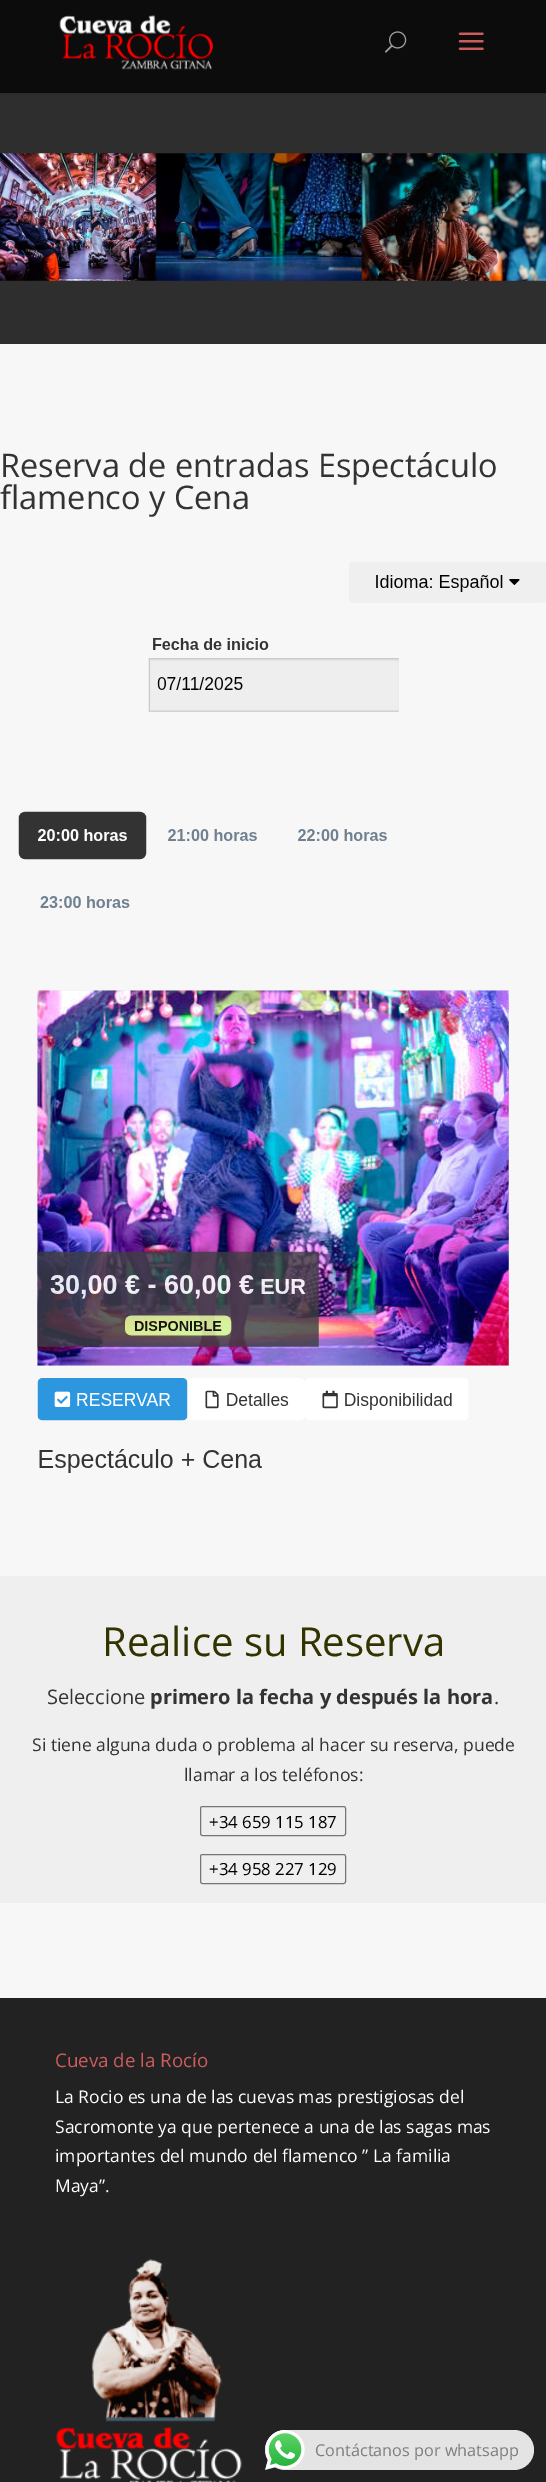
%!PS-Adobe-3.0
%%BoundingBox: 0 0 546 2482
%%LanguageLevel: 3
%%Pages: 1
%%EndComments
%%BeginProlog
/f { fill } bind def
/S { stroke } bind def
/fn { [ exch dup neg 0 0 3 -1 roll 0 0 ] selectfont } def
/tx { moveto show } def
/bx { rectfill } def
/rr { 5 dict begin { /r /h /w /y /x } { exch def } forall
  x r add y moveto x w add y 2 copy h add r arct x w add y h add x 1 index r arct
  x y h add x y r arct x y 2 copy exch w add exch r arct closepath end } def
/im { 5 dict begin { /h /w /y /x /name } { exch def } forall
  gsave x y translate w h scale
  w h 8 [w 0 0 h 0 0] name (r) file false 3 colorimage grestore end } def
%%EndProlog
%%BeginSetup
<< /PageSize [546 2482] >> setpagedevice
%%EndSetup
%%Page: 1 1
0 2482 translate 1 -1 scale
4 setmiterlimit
0.133 setgray
0 0 546 2482 bx
0.161 setgray
0 93 546 1 bx
0.047 setgray
0 0 546 93 bx
(image0.raw) 59 15 155 55 im
(image1.raw) 385 31 22 22 im
(image2.raw) 458 32 26 18 im
0.18 setgray
0 94 546 250 bx
(image3.raw) 0 153 546 128 im
0.969 setgray
0 344 546 1654 bx
/OpenSans-Regular 32.5 fn
0.2 setgray
(Reserva de entradas Espectáculo) 0 477 tx
(flamenco y Cena) 0 509 tx
(image4.raw) 18 562 528 911 im
0.937 setgray
0 1576 546 327 bx
/OpenSans-Regular 40 fn
0.2 0.2 0 setrgbcolor
(Realice su Reserva) 102 1656 tx
/OpenSans-Regular 20 fn
0.2 setgray
(Seleccione) 47 1704 tx
/OpenSans-Bold 20 fn
(primero la fecha y después la hora) 150 1704 tx
/OpenSans-Regular 20 fn
(.) 494 1704 tx
/OpenSans-Regular 17.5 fn
(Si tiene alguna duda o problema al hacer su reserva, puede) 32 1751 tx
(llamar a los teléfonos:) 184 1781 tx
0.463 setgray
200.5 1806.5 145 29 2 rr S
/OpenSans-Regular 16.75 fn
0 setgray
(+34 659 115 187) 209 1828 tx
0.463 setgray
200.5 1854.5 145 29 2 rr S
0 setgray
(+34 958 227 129) 209 1875 tx
/OpenSans-Regular 18.75 fn
0.804 0.361 0.361 setrgbcolor
(Cueva de la Rocío) 55 2067 tx
/OpenSans-Regular 17.5 fn
1 setgray
(La Rocio es una de las cuevas mas prestigiosas del) 55 2103 tx
(Sacromonte ya que pertenece a una de las sagas mas) 55 2133 tx
(importantes del mundo del flamenco ” La familia) 55 2162 tx
(Maya”.) 55 2192 tx
(image5.raw) 56 2259 186 223 im
0.894 setgray
265 2430 269 40 20 rr f
(image6.raw) 265 2430 40 40 im
/OpenSans-Regular 16.25 fn
0.498 0.49 0.49 setrgbcolor
(Contáctanos por whatsapp) 315 2456 tx
showpage
%%EOF
